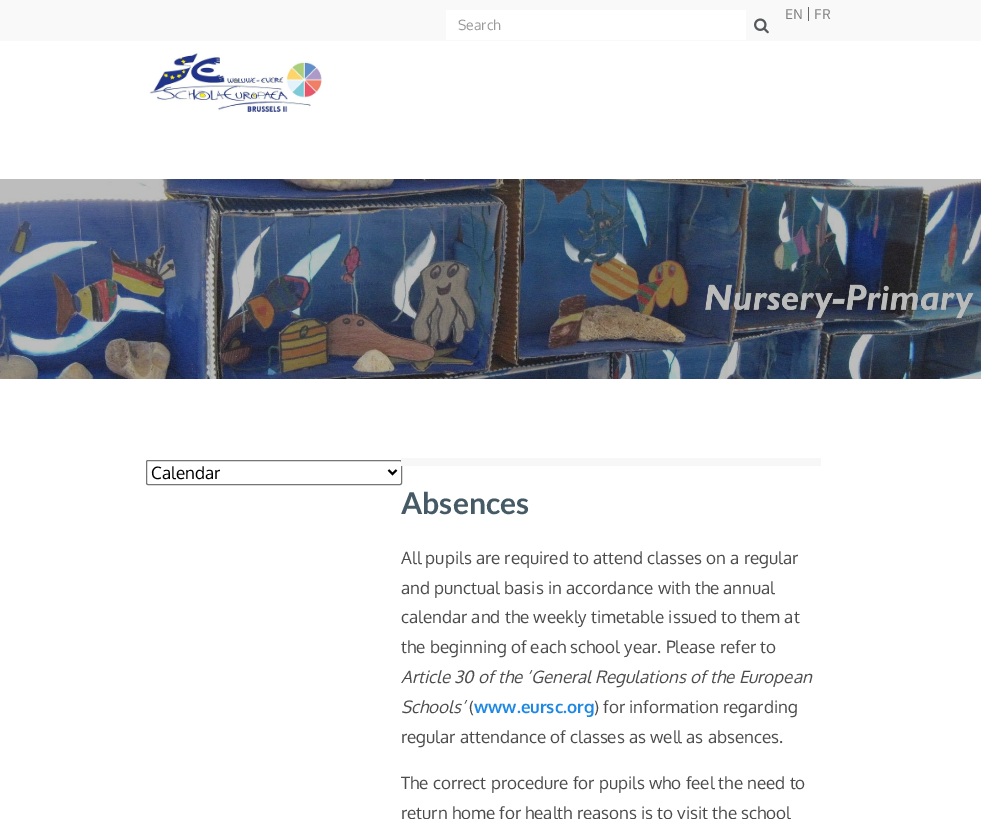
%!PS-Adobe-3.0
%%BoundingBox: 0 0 981 819
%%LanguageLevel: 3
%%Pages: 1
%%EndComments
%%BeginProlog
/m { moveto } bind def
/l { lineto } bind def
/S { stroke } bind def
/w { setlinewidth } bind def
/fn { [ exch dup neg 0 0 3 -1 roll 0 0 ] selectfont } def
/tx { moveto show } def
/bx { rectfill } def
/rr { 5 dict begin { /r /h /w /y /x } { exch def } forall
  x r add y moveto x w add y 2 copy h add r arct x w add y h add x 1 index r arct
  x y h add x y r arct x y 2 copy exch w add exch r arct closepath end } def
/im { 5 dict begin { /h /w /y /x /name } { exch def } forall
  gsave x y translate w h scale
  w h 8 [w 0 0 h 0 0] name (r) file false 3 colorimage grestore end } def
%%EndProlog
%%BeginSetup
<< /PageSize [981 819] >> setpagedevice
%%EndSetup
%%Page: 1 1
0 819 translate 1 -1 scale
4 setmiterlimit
1 setgray
0 0 981 819 bx
0.976 setgray
0 0 981 41 bx
0.4 setgray
808 7 1 14 bx
/IBMPlexSans-Regular 14 fn
0.502 setgray
(EN) 785 19 tx
(FR) 814 19 tx
1 setgray
446 10 300 30 bx
/Oxygen-Regular 14 fn
0.6 setgray
(Search) 458 30 tx
(image0.raw) 754 18 15 16 im
(image1.raw) 149 51 173 61 im
(image2.raw) 0 179 981 200 im
0.463 setgray
146.5 460.5 255 24 1.5 rr S
0 setgray
2 w
388.5 470 m 392.5 474 l 396.5 470 l S
/Oxygen-Regular 17 fn
(Calendar) 151 479 tx
0.969 setgray
401 458 420 8 bx
/Lato-Bold 30 fn
0.271 0.353 0.392 setrgbcolor
(Absences) 401 514 tx
/Oxygen-Regular 17 fn
0.298 setgray
(All pupils are required to attend classes on a regular) 401 564 tx
(and punctual basis in accordance with the annual) 401 594 tx
(calendar and the weekly timetable issued to them at) 401 623 tx
(the beginning of each school year. Please refer to) 401 653 tx
/Oxygen-Italic 17 fn
(Article 30 of the ‘General Regulations of the European) 401 683 tx
(Schools’) 401 713 tx
/Oxygen-Regular 17 fn
(\() 469 713 tx
/Oxygen-Bold 17 fn
0.118 0.533 0.898 setrgbcolor
(www.eursc.org) 474 713 tx
/Oxygen-Regular 17 fn
0.298 setgray
(\) for information regarding) 594 713 tx
(regular attendance of classes as well as absences.) 401 743 tx
(The correct procedure for pupils who feel the need to) 401 789 tx
(return home for health reasons is to visit the school) 401 819 tx
showpage
%%EOF
